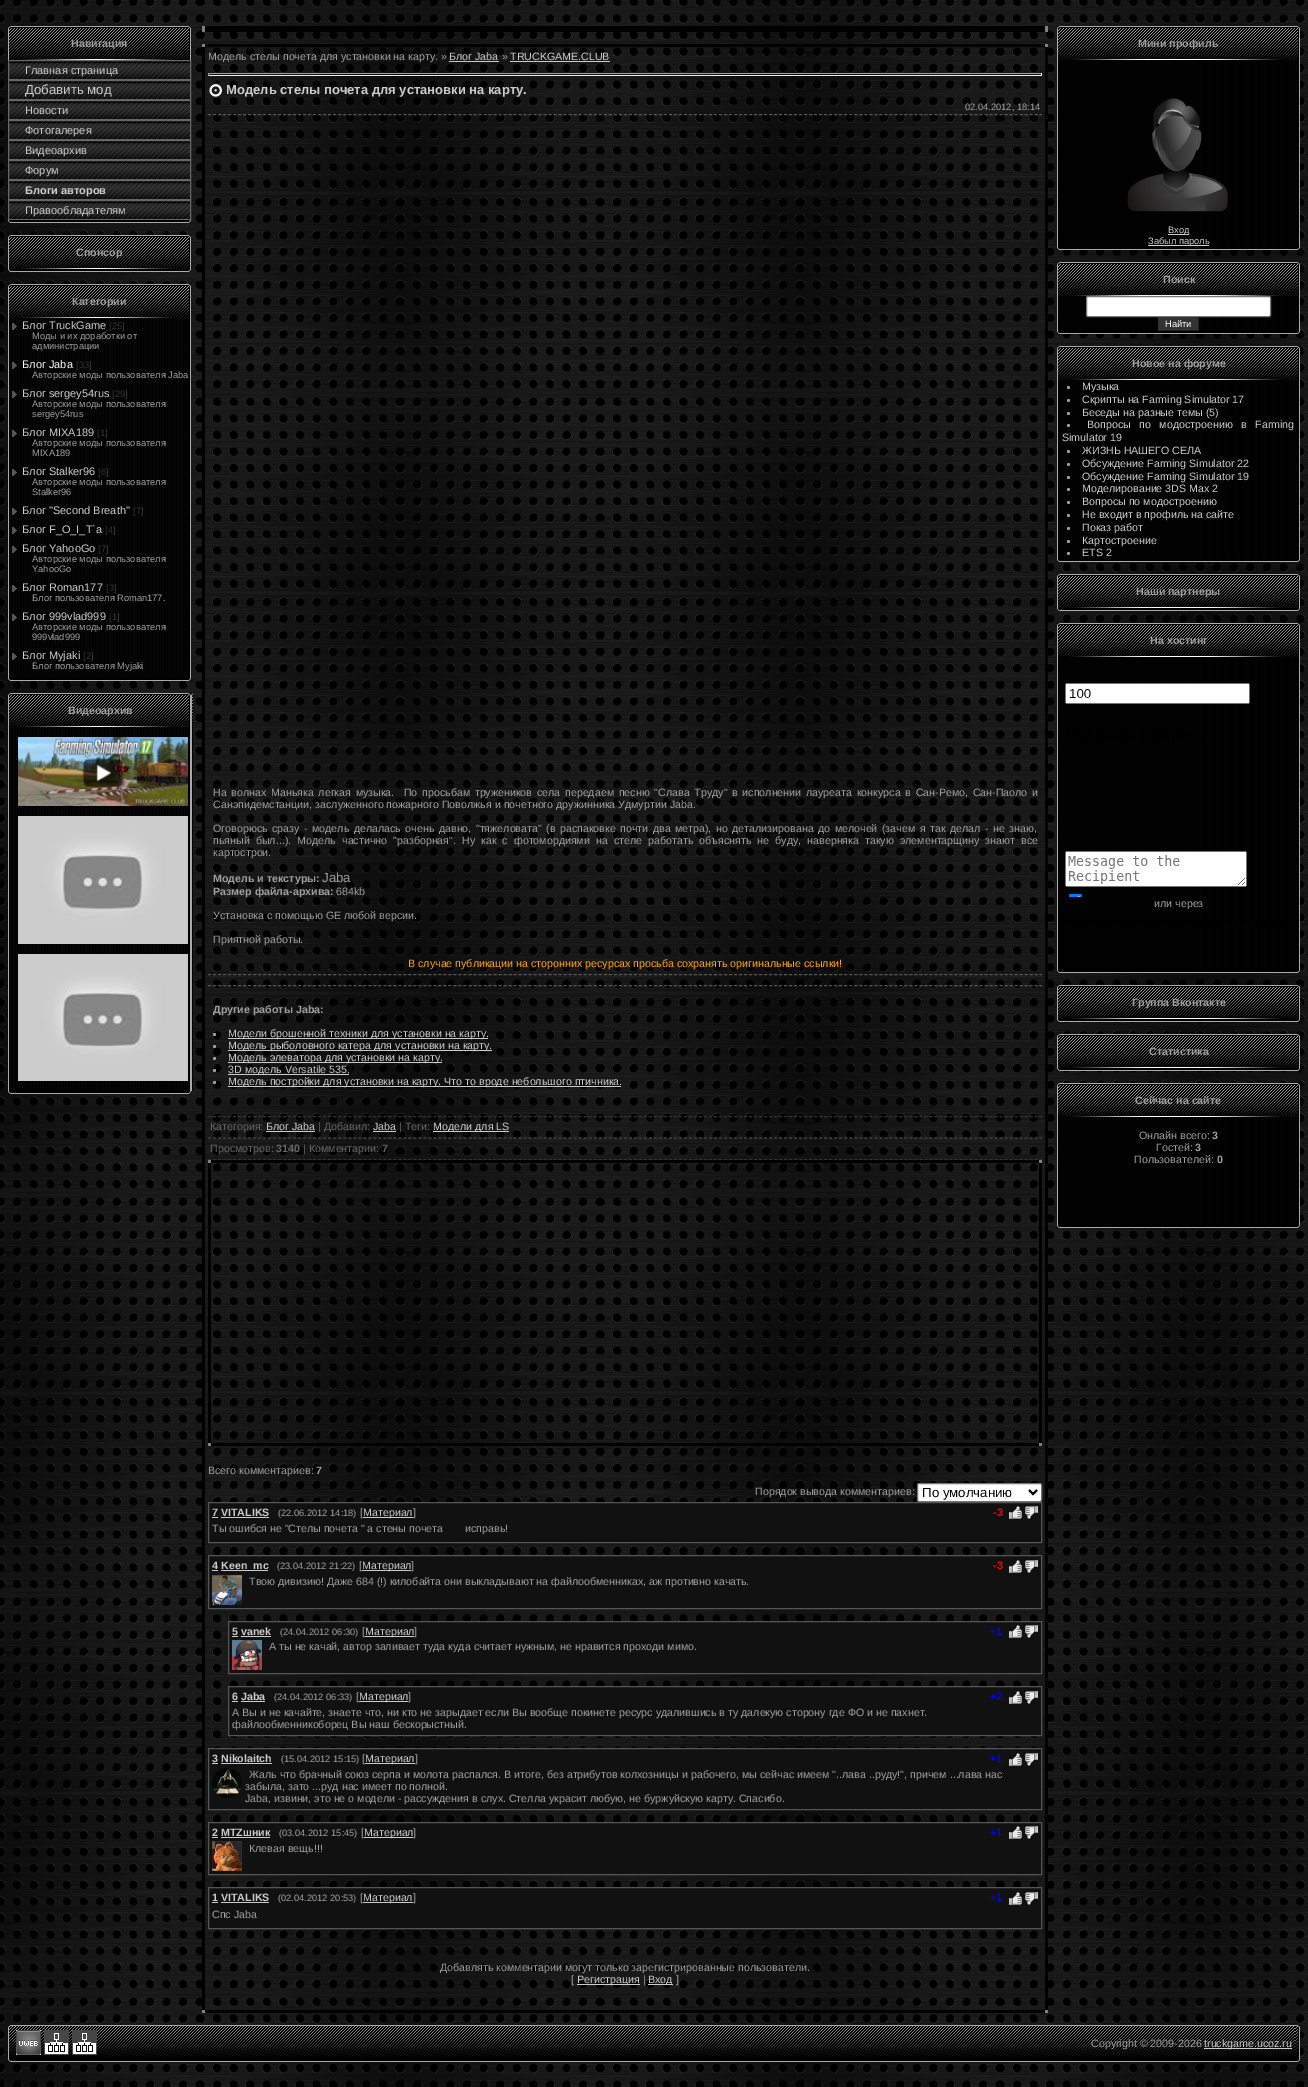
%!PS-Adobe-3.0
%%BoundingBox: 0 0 1308 2087
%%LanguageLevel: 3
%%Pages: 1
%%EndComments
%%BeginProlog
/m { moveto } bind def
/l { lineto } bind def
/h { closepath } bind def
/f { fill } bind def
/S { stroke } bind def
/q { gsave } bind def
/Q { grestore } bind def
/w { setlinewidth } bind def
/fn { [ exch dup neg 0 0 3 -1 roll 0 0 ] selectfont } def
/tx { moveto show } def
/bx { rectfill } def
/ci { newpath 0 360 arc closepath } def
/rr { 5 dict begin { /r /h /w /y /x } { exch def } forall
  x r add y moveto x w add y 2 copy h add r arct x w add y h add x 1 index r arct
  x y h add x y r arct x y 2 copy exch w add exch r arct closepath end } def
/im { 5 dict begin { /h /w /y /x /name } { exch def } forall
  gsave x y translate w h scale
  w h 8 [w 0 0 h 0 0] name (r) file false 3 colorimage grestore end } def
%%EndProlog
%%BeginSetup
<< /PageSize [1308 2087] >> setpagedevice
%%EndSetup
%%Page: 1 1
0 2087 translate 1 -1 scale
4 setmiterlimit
1 setgray
0 0 1308 2087 bx
(image0.raw) 0 0 1308 2087 im
(image1.raw) 8 26 183 34 im
/LiberationSans-Bold 10.67 fn
0.624 setgray
(Навигация) 71 47 tx
(image2.raw) 9 61 181 18 im
0.4 setgray
8.5 60.5 182 19 rectstroke
/LiberationSans-Regular 11 fn
0.8 setgray
(Главная страница) 25 74 tx
(image2.raw) 9 81 181 18 im
0.4 setgray
8.5 80.5 182 19 rectstroke
/LiberationSans-Regular 13.25 fn
0.8 setgray
(Добавить мод) 25 94 tx
(image2.raw) 9 101 181 18 im
0.4 setgray
8.5 100.5 182 19 rectstroke
/LiberationSans-Regular 11 fn
0.8 setgray
(Новости) 25 114 tx
(image2.raw) 9 121 181 18 im
0.4 setgray
8.5 120.5 182 19 rectstroke
0.8 setgray
(Фотогалерея) 25 134 tx
(image2.raw) 9 141 181 18 im
0.4 setgray
8.5 140.5 182 19 rectstroke
0.8 setgray
(Видеоархив) 25 154 tx
(image2.raw) 9 161 181 18 im
0.4 setgray
8.5 160.5 182 19 rectstroke
0.8 setgray
(Форум) 25 174 tx
(image2.raw) 9 181 181 18 im
0.4 setgray
8.5 180.5 182 19 rectstroke
/LiberationSans-Bold 11 fn
0.8 setgray
(Блоги авторов) 25 194 tx
(image2.raw) 9 201 181 18 im
0.4 setgray
8.5 200.5 182 19 rectstroke
/LiberationSans-Regular 11 fn
0.8 setgray
(Правообладателям) 25 214 tx
(image3.raw) 8 220 183 3 im
(image1.raw) 8 235 183 34 im
/LiberationSans-Bold 10.67 fn
0.624 setgray
(Спонсор) 76 256 tx
(image3.raw) 8 269 183 3 im
(image1.raw) 8 284 183 34 im
(Категории) 72 305 tx
(image4.raw) 8 318 183 360 im
(image5.raw) 12 323 5 7 im
/LiberationSans-Regular 11 fn
0.8 setgray
(Блог TruckGame) 22 329 tx
/LiberationSans-Regular 9.3 fn
0.2 setgray
([25]) 109 329 tx
0.624 setgray
(Моды и их доработки от) 32 339 tx
(администрации) 32 349 tx
(image6.raw) 12 362 5 7 im
/LiberationSans-Regular 11 fn
1 setgray
(Блог Jaba) 22 368 tx
/LiberationSans-Regular 9.3 fn
0.2 setgray
([33]) 76 368 tx
0.624 setgray
(Авторские моды пользователя Jaba) 32 378 tx
(image5.raw) 12 391 5 7 im
/LiberationSans-Regular 11 fn
0.8 setgray
(Блог sergey54rus) 22 397 tx
/LiberationSans-Regular 9.3 fn
0.2 setgray
([29]) 112 397 tx
0.624 setgray
(Авторские моды пользователя) 32 407 tx
(sergey54rus) 32 417 tx
(image6.raw) 12 430 5 7 im
/LiberationSans-Regular 11 fn
0.8 setgray
(Блог MIXA189) 22 436 tx
/LiberationSans-Regular 9.3 fn
0.2 setgray
([1]) 97 436 tx
0.624 setgray
(Авторские моды пользователя) 32 446 tx
(MIXA189) 32 456 tx
(image5.raw) 12 469 5 7 im
/LiberationSans-Regular 11 fn
0.8 setgray
(Блог Stalker96) 22 475 tx
/LiberationSans-Regular 9.3 fn
0.2 setgray
([6]) 98 475 tx
0.624 setgray
(Авторские моды пользователя) 32 485 tx
(Stalker96) 32 495 tx
(image6.raw) 12 508 5 7 im
/LiberationSans-Regular 11 fn
0.8 setgray
(Блог ''Second Вreath'') 22 514 tx
/LiberationSans-Regular 9.3 fn
0.2 setgray
([7]) 133 514 tx
(image5.raw) 12 527 5 7 im
/LiberationSans-Regular 11 fn
0.8 setgray
(Блог F_O_I_T`а) 22 533 tx
/LiberationSans-Regular 9.3 fn
0.2 setgray
([4]) 105 533 tx
(image6.raw) 12 546 5 7 im
/LiberationSans-Regular 11 fn
0.8 setgray
(Блог YahooGo) 22 552 tx
/LiberationSans-Regular 9.3 fn
0.2 setgray
([7]) 98 552 tx
0.624 setgray
(Авторские моды пользователя) 32 562 tx
(YahooGo) 32 572 tx
(image5.raw) 12 585 5 7 im
/LiberationSans-Regular 11 fn
0.8 setgray
(Блог Roman177) 22 591 tx
/LiberationSans-Regular 9.3 fn
0.2 setgray
([3]) 106 591 tx
0.624 setgray
(Блог пользователя Roman177.) 32 601 tx
(image6.raw) 12 614 5 7 im
/LiberationSans-Regular 11 fn
0.8 setgray
(Блог 999vlad999) 22 620 tx
/LiberationSans-Regular 9.3 fn
0.2 setgray
([1]) 109 620 tx
0.624 setgray
(Авторские моды пользователя) 32 630 tx
(999vlad999) 32 640 tx
(image5.raw) 12 653 5 7 im
/LiberationSans-Regular 11 fn
0.8 setgray
(Блог Myjaki) 22 659 tx
/LiberationSans-Regular 9.3 fn
0.2 setgray
([2]) 83 659 tx
0.624 setgray
(Блог пользователя Myjaki) 32 669 tx
(image3.raw) 8 678 183 3 im
(image7.raw) 8 693 185 34 im
/LiberationSans-Bold 10.67 fn
(Видеоархив) 68 714 tx
(image8.raw) 8 727 185 364 im
(image9.raw) 18 737 170 69 im
(image10.raw) 18 816 170 128 im
(image11.raw) 18 954 170 127 im
(image3.raw) 8 1091 183 3 im
0.502 setgray
202 26 3 6 bx
0 setgray
205 26 840 6 bx
0.502 setgray
1045 26 3 6 bx
202 44 3 3 bx
0 setgray
205 44 840 3 bx
0.502 setgray
1045 44 3 3 bx
0 setgray
202 47 3 1963 bx
/LiberationSans-Regular 10.67 fn
0.624 setgray
(Модель стелы почета для установки на карту. ») 208 60 tx
0.8 setgray
(Блог Jaba) 449 60 tx
449 61 50 1 bx
0.624 setgray
(») 502 60 tx
0.8 setgray
(TRUCKGAME.CLUB) 510 60 tx
510 61 100 1 bx
0.624 setgray
208 73 834 1 bx
0.933 setgray
1041 73 1 3 bx
208 75 834 1 bx
0.624 setgray
208 73 1 3 bx
(image12.raw) 208 83 14 15 im
/LiberationSans-Bold 13 fn
0.8 setgray
(Модель стелы почета для установки на карту.) 226 94 tx
/LiberationSans-Regular 9.3 fn
0.624 setgray
(02.04.2012, 18:14) 965 110 tx
0.333 setgray
[3 2.01] 0 setdash
208 114.5 m 1042 114.5 l S
/LiberationSans-Regular 10.67 fn
0.624 setgray
213 796 m 1.75 0 32 (На волнах Маньяка легкая музыка.  По просьбам тружеников села передаем песню "Слава Труду" в исполнении лауреата конкурса в Сан-Ремо, Сан-Паоло и) widthshow
(Санэпидемстанции, заслуженного пожарного Поволжья и почетного дружинника Удмуртии Jaba.) 213 808 tx
213 832 m 1.5 0 32 (Оговорюсь сразу - модель делалась очень давно, "тяжеловата" \(в распаковке почти два метра\), но детализирована до мелочей \(зачем я так делал - не знаю,) widthshow
213 844 m 3.1 0 32 (пьяный был...\). Модель частично "разборная". Ну как с фотомордиями на стеле работать объяснять не буду, наверняка такую элементарщину знают все) widthshow
(картострои.) 213 856 tx
/LiberationSans-Bold 10.67 fn
(Модель и текстуры:) 213 882 tx
/LiberationSans-Regular 13.25 fn
(Jaba) 322 882 tx
/LiberationSans-Bold 10.67 fn
(Размер файла-архива:) 213 895 tx
/LiberationSans-Regular 10.67 fn
(684kb) 336 895 tx
(Установка с помощью GE любой версии.) 213 919 tx
(Приятной работы.) 213 943 tx
1 0.647 0 setrgbcolor
(В случае публикации на сторонних ресурсах просьба сохранять оригинальные ссылки!) 408 967 tx
0.333 setgray
208 974.5 m 1042 974.5 l S
208 985.5 m 1042 985.5 l S
/LiberationSans-Bold 10.67 fn
0.624 setgray
(Другие работы Jaba:) 213 1013 tx
214.5 1034.5 1.5 ci f
0.8 setgray
228 1038 260 1 bx
/LiberationSans-Regular 10.67 fn
(Модели брошенной техники для установки на карту.) 228 1037 tx
0.624 setgray
214.5 1046.5 1.5 ci f
0.8 setgray
228 1050 264 1 bx
(Модель рыболовного катера для установки на карту.) 228 1049 tx
0.624 setgray
214.5 1058.5 1.5 ci f
0.8 setgray
228 1062 214 1 bx
(Модель элеватора для установки на карту.) 228 1061 tx
0.624 setgray
214.5 1070.5 1.5 ci f
0.8 setgray
228 1074 121 1 bx
(3D модель Versatile 535.) 228 1073 tx
0.624 setgray
214.5 1082.5 1.5 ci f
0.8 setgray
228 1086 393 1 bx
(Модель постройки для установки на карту. Что то вроде небольшого птичника.) 228 1085 tx
0.2 setgray
208 1116.5 m 1042 1116.5 l S
208 1137.5 m 1042 1137.5 l S
0.4 setgray
(Категория:) 210 1130 tx
0.8 setgray
(Блог Jaba) 266 1130 tx
266 1131 49 1 bx
0.4 setgray
(| Добавил:) 318 1130 tx
0.8 setgray
(Jaba) 373 1130 tx
373 1131 23 1 bx
0.4 setgray
(| Теги:) 399 1130 tx
0.8 setgray
433 1131 76 1 bx
(Модели для LS) 433 1130 tx
0.2 setgray
208 1138.5 m 1042 1138.5 l S
208 1159.5 m 1042 1159.5 l S
0.4 setgray
(Просмотров:) 210 1152 tx
/LiberationSans-Bold 10.67 fn
(3140) 276 1152 tx
/LiberationSans-Regular 10.67 fn
(| Комментарии:) 303 1152 tx
/LiberationSans-Bold 10.67 fn
(7) 382 1152 tx
0.502 setgray
208 1160 3 3 bx
0 setgray
211 1160 828 3 bx
0.502 setgray
1039 1160 3 3 bx
0 setgray
208 1163 3 280 bx
1039 1163 3 280 bx
0.502 setgray
208 1443 3 3 bx
0 setgray
211 1443 828 3 bx
0.502 setgray
1039 1443 3 3 bx
/LiberationSans-Regular 10.67 fn
0.624 setgray
(Всего комментариев:) 208 1474 tx
/LiberationSans-Bold 10.67 fn
(7) 316 1474 tx
/LiberationSans-Regular 10.67 fn
(Порядок вывода комментариев:) 755 1495 tx
1 setgray
917.5 1483.5 124 18 1.5 rr q f Q
0.463 setgray
[] 0 setdash
S
0 setgray
2 w
1029 1490 m 1033 1494 l 1037 1490 l S
/LiberationSans-Regular 13.25 fn
(По умолчанию) 922 1497 tx
0.067 setgray
208.5 1502.5 m 1041.5 1502.5 l 1041.5 1542.5 l 208.5 1542.5 l h q f Q
0.333 setgray
1 w
S
/LiberationSans-Bold 10.67 fn
0.8 setgray
(7 VITALIKS) 212 1516 tx
212 1517 6 1 bx
/LiberationSans-Regular 9.3 fn
0.624 setgray
(\(22.06.2012 14:18\)) 278 1516 tx
/LiberationSans-Regular 10.67 fn
([) 360 1516 tx
0.8 setgray
363 1517 50 1 bx
(Материал) 363 1516 tx
0.624 setgray
(]) 413 1516 tx
0.8 setgray
221 1517 48 1 bx
/LiberationSans-Bold 11 fn
1 0 0 setrgbcolor
(-3) 993 1516 tx
(image13.raw) 1009 1506 13 13 im
(image14.raw) 1025 1506 13 13 im
/LiberationSans-Regular 10.67 fn
0.624 setgray
(Ты ошибся не "Стелы почета " а стены почета) 212 1532 tx
(исправь!) 465 1532 tx
0.067 setgray
208.5 1555.5 m 1041.5 1555.5 l 1041.5 1608.5 l 208.5 1608.5 l h q f Q
0.333 setgray
S
/LiberationSans-Bold 10.67 fn
0.8 setgray
(4) 212 1569 tx
212 1570 6 1 bx
221 1570 47 1 bx
(Keen_mc) 221 1569 tx
/LiberationSans-Regular 9.3 fn
0.624 setgray
(\(23.04.2012 21:22\)) 277 1569 tx
/LiberationSans-Regular 10.67 fn
([) 359 1569 tx
0.8 setgray
362 1570 49 1 bx
(Материал) 362 1569 tx
0.624 setgray
(]) 411 1569 tx
/LiberationSans-Bold 11 fn
1 0 0 setrgbcolor
(-3) 993 1569 tx
(image13.raw) 1009 1560 13 13 im
(image14.raw) 1025 1560 13 13 im
(image15.raw) 212 1575 30 30 im
/LiberationSans-Regular 10.67 fn
0.624 setgray
(Твою дивизию! Даже 684 \(!\) килобайта они выкладывают на файлообменниках, аж противно качать.) 249 1585 tx
0.067 setgray
228.5 1621.5 m 1041.5 1621.5 l 1041.5 1673.5 l 228.5 1673.5 l h q f Q
0.333 setgray
S
/LiberationSans-Bold 10.67 fn
0.8 setgray
(5 vanek) 232 1635 tx
232 1636 6 1 bx
/LiberationSans-Regular 9.3 fn
0.624 setgray
(\(24.04.2012 06:30\)) 280 1635 tx
/LiberationSans-Regular 10.67 fn
([) 362 1635 tx
0.8 setgray
365 1636 49 1 bx
(Материал) 365 1635 tx
0.624 setgray
(]) 414 1635 tx
0.8 setgray
241 1636 30 1 bx
/LiberationSans-Bold 11 fn
0 0 1 setrgbcolor
(+1) 990 1635 tx
(image13.raw) 1009 1625 13 13 im
(image14.raw) 1025 1625 13 13 im
(image16.raw) 232 1640 30 30 im
/LiberationSans-Regular 10.67 fn
0.624 setgray
(А ты не качай, автор заливает туда куда считает нужным, не нравится проходи мимо.) 269 1650 tx
0.067 setgray
228.5 1686.5 m 1041.5 1686.5 l 1041.5 1735.5 l 228.5 1735.5 l h q f Q
0.333 setgray
S
/LiberationSans-Bold 10.67 fn
0.8 setgray
(6 Jaba) 232 1700 tx
232 1701 6 1 bx
/LiberationSans-Regular 9.3 fn
0.624 setgray
(\(24.04.2012 06:33\)) 274 1700 tx
/LiberationSans-Regular 10.67 fn
([) 356 1700 tx
0.8 setgray
359 1701 49 1 bx
(Материал) 359 1700 tx
0.624 setgray
(]) 408 1700 tx
0.8 setgray
241 1701 24 1 bx
/LiberationSans-Bold 11 fn
0 0 1 setrgbcolor
(+2) 990 1700 tx
(image13.raw) 1009 1691 13 13 im
(image14.raw) 1025 1691 13 13 im
/LiberationSans-Regular 10.67 fn
0.624 setgray
(А Вы и не качайте, знаете что, ни кто не зарыдает если Вы вообще покинете ресурс удалившись в ту далекую сторону где ФО и не пахнет.) 232 1716 tx
(файлообменникоборец Вы наш бескорыстный.) 232 1728 tx
0.067 setgray
208.5 1748.5 m 1041.5 1748.5 l 1041.5 1809.5 l 208.5 1809.5 l h q f Q
0.333 setgray
S
/LiberationSans-Bold 10.67 fn
0.8 setgray
(3 Nikolaitch) 212 1762 tx
212 1763 6 1 bx
/LiberationSans-Regular 9.3 fn
0.624 setgray
(\(15.04.2012 15:15\)) 281 1762 tx
/LiberationSans-Regular 10.67 fn
([) 362 1762 tx
0.8 setgray
365 1763 50 1 bx
(Материал) 365 1762 tx
0.624 setgray
(]) 415 1762 tx
0.8 setgray
221 1763 51 1 bx
/LiberationSans-Bold 11 fn
0 0 1 setrgbcolor
(+1) 990 1762 tx
(image13.raw) 1009 1753 13 13 im
(image14.raw) 1025 1753 13 13 im
(image17.raw) 212 1768 30 30 im
/LiberationSans-Regular 10.67 fn
0.624 setgray
(Жаль что брачный союз серпа и молота распался. В итоге, без атрибутов колхозницы и рабочего, мы сейчас имеем "..лава ..руду!", причем ...лава нас) 249 1778 tx
(забыла, зато ...руд нас имеет по полной.) 245 1790 tx
(Jaba, извини, это не о модели - рассуждения в слух. Стелла украсит любую, не буржуйскую карту. Спасибо.) 245 1802 tx
0.067 setgray
208.5 1822.5 m 1041.5 1822.5 l 1041.5 1874.5 l 208.5 1874.5 l h q f Q
0.333 setgray
S
/LiberationSans-Bold 10.67 fn
0.8 setgray
(2 MTZшник) 212 1836 tx
212 1837 6 1 bx
/LiberationSans-Regular 9.3 fn
0.624 setgray
(\(03.04.2012 15:45\)) 279 1836 tx
/LiberationSans-Regular 10.67 fn
([) 361 1836 tx
0.8 setgray
364 1837 49 1 bx
(Материал) 364 1836 tx
0.624 setgray
(]) 413 1836 tx
0.8 setgray
221 1837 49 1 bx
/LiberationSans-Bold 11 fn
0 0 1 setrgbcolor
(+1) 990 1836 tx
(image13.raw) 1009 1826 13 13 im
(image14.raw) 1025 1826 13 13 im
(image18.raw) 212 1841 30 30 im
/LiberationSans-Regular 10.67 fn
0.624 setgray
(Клевая вещь!!!) 249 1852 tx
0.067 setgray
208.5 1887.5 m 1041.5 1887.5 l 1041.5 1928.5 l 208.5 1928.5 l h q f Q
0.333 setgray
S
/LiberationSans-Bold 10.67 fn
0.8 setgray
(1 VITALIKS) 212 1901 tx
212 1902 6 1 bx
/LiberationSans-Regular 9.3 fn
0.624 setgray
(\(02.04.2012 20:53\)) 278 1901 tx
/LiberationSans-Regular 10.67 fn
([) 360 1901 tx
0.8 setgray
363 1902 50 1 bx
(Материал) 363 1901 tx
0.624 setgray
(]) 413 1901 tx
0.8 setgray
221 1902 48 1 bx
/LiberationSans-Bold 11 fn
0 0 1 setrgbcolor
(+1) 990 1901 tx
(image13.raw) 1009 1892 13 13 im
(image14.raw) 1025 1892 13 13 im
/LiberationSans-Regular 10.67 fn
0.624 setgray
(Спс Jaba) 212 1918 tx
(Добавлять комментарии могут только зарегистрированные пользователи.) 440 1971 tx
([) 571 1983 tx
0.8 setgray
577 1984 63 1 bx
(Регистрация) 577 1983 tx
0.624 setgray
(|) 643 1983 tx
0.8 setgray
648 1984 25 1 bx
(Вход) 648 1983 tx
0.624 setgray
(]) 676 1983 tx
0 setgray
1045 47 3 1963 bx
0.502 setgray
202 2010 3 3 bx
0 setgray
205 2010 840 3 bx
0.502 setgray
1045 2010 3 3 bx
(image19.raw) 1057 26 243 34 im
/LiberationSans-Bold 10.67 fn
0.624 setgray
(Мини профиль) 1138 47 tx
(image20.raw) 1057 60 243 187 im
(image21.raw) 1127 98 101 114 im
0.8 setgray
1168 234 21 1 bx
/LiberationSans-Regular 9.3 fn
(Вход) 1168 233 tx
1148 245 61 1 bx
(Забыл пароль) 1148 244 tx
(image22.raw) 1057 247 243 3 im
(image19.raw) 1057 262 243 34 im
/LiberationSans-Bold 10.67 fn
0.624 setgray
(Поиск) 1163 283 tx
(image23.raw) 1057 296 243 35 im
1 setgray
1086.5 296.5 184 20 1.5 rr q f Q
0.463 setgray
S
0.2 setgray
1159 317 39 13 bx
0.133 setgray
1198 317 1 14 bx
1158 330 41 1 bx
0.2 setgray
1158 317 1 14 bx
/LiberationSans-Regular 9.3 fn
1 setgray
(Найти) 1165 327 tx
(image22.raw) 1057 331 243 3 im
(image19.raw) 1057 346 243 34 im
/LiberationSans-Bold 10.67 fn
0.624 setgray
(Новое на форуме) 1132 367 tx
(image24.raw) 1057 380 243 179 im
1068.5 387.5 1.5 ci f
/LiberationSans-Regular 10.67 fn
0.8 setgray
(Музыка) 1082 390 tx
0.624 setgray
1068.5 400.5 1.5 ci f
0.8 setgray
(Скрипты на Farming Simulator 17) 1082 403 tx
0.624 setgray
1068.5 413.5 1.5 ci f
0.8 setgray
(Беседы на разные темы \(5\)) 1082 416 tx
0.624 setgray
1068.5 425.5 1.5 ci f
0.8 setgray
1087 428 m 5.5 0 32 (Вопросы по модостроению в Farming) widthshow
(Simulator 19) 1062 441 tx
0.624 setgray
1068.5 451.5 1.5 ci f
0.8 setgray
(ЖИЗНЬ НАШЕГО СЕЛА) 1082 454 tx
0.624 setgray
1068.5 464.5 1.5 ci f
0.8 setgray
(Обсуждение Farming Simulator 22) 1082 467 tx
0.624 setgray
1068.5 477.5 1.5 ci f
0.8 setgray
(Обсуждение Farming Simulator 19) 1082 480 tx
0.624 setgray
1068.5 489.5 1.5 ci f
0.8 setgray
(Моделирование 3DS Max 2) 1082 492 tx
0.624 setgray
1068.5 502.5 1.5 ci f
0.8 setgray
(Вопросы по модостроению) 1082 505 tx
0.624 setgray
1068.5 515.5 1.5 ci f
0.8 setgray
(Не входит в профиль на сайте) 1082 518 tx
0.624 setgray
1068.5 528.5 1.5 ci f
0.8 setgray
(Показ работ) 1082 531 tx
0.624 setgray
1068.5 541.5 1.5 ci f
0.8 setgray
(Картостроение) 1082 544 tx
0.624 setgray
1068.5 553.5 1.5 ci f
0.8 setgray
(ETS 2) 1082 556 tx
(image22.raw) 1057 559 243 3 im
(image19.raw) 1057 574 243 34 im
/LiberationSans-Bold 10.67 fn
0.624 setgray
(Наши партнеры) 1136 595 tx
(image22.raw) 1057 608 243 3 im
(image19.raw) 1057 623 243 34 im
(На хостинг) 1150 644 tx
(image25.raw) 1057 657 243 313 im
(image26.raw) 1065 683 185 214 im
/LiberationSans-Regular 10.67 fn
(или через) 1154 907 tx
0 setgray
2 w
1061 922 236 47 rectstroke
(image22.raw) 1057 970 243 3 im
(image19.raw) 1057 985 243 34 im
/LiberationSans-Bold 10.67 fn
0.624 setgray
(Группа Вконтакте) 1132 1006 tx
(image22.raw) 1057 1019 243 3 im
(image19.raw) 1057 1034 243 34 im
(Статистика) 1149 1055 tx
(image22.raw) 1057 1068 243 3 im
(image19.raw) 1057 1083 243 34 im
(Сейчас на сайте) 1135 1104 tx
(image27.raw) 1057 1117 243 108 im
/LiberationSans-Regular 10.67 fn
(Онлайн всего:) 1139 1139 tx
/LiberationSans-Bold 10.67 fn
(3) 1212 1139 tx
/LiberationSans-Regular 10.67 fn
(Гостей:) 1156 1151 tx
/LiberationSans-Bold 10.67 fn
(3) 1195 1151 tx
/LiberationSans-Regular 10.67 fn
(Пользователей:) 1134 1163 tx
/LiberationSans-Bold 10.67 fn
(0) 1217 1163 tx
(image22.raw) 1057 1225 243 3 im
(image28.raw) 8 2025 5 37 im
(image29.raw) 13 2025 1282 37 im
(image30.raw) 16 2030 25 25 im
(image31.raw) 44 2030 25 25 im
(image31.raw) 72 2030 25 25 im
/LiberationSans-Regular 10.67 fn
(Copyright © 2009-2026) 1091 2047 tx
0.8 setgray
1204 2048 88 1 bx
(truckgame.ucoz.ru) 1204 2047 tx
(image32.raw) 1295 2025 5 37 im
showpage
%%EOF
